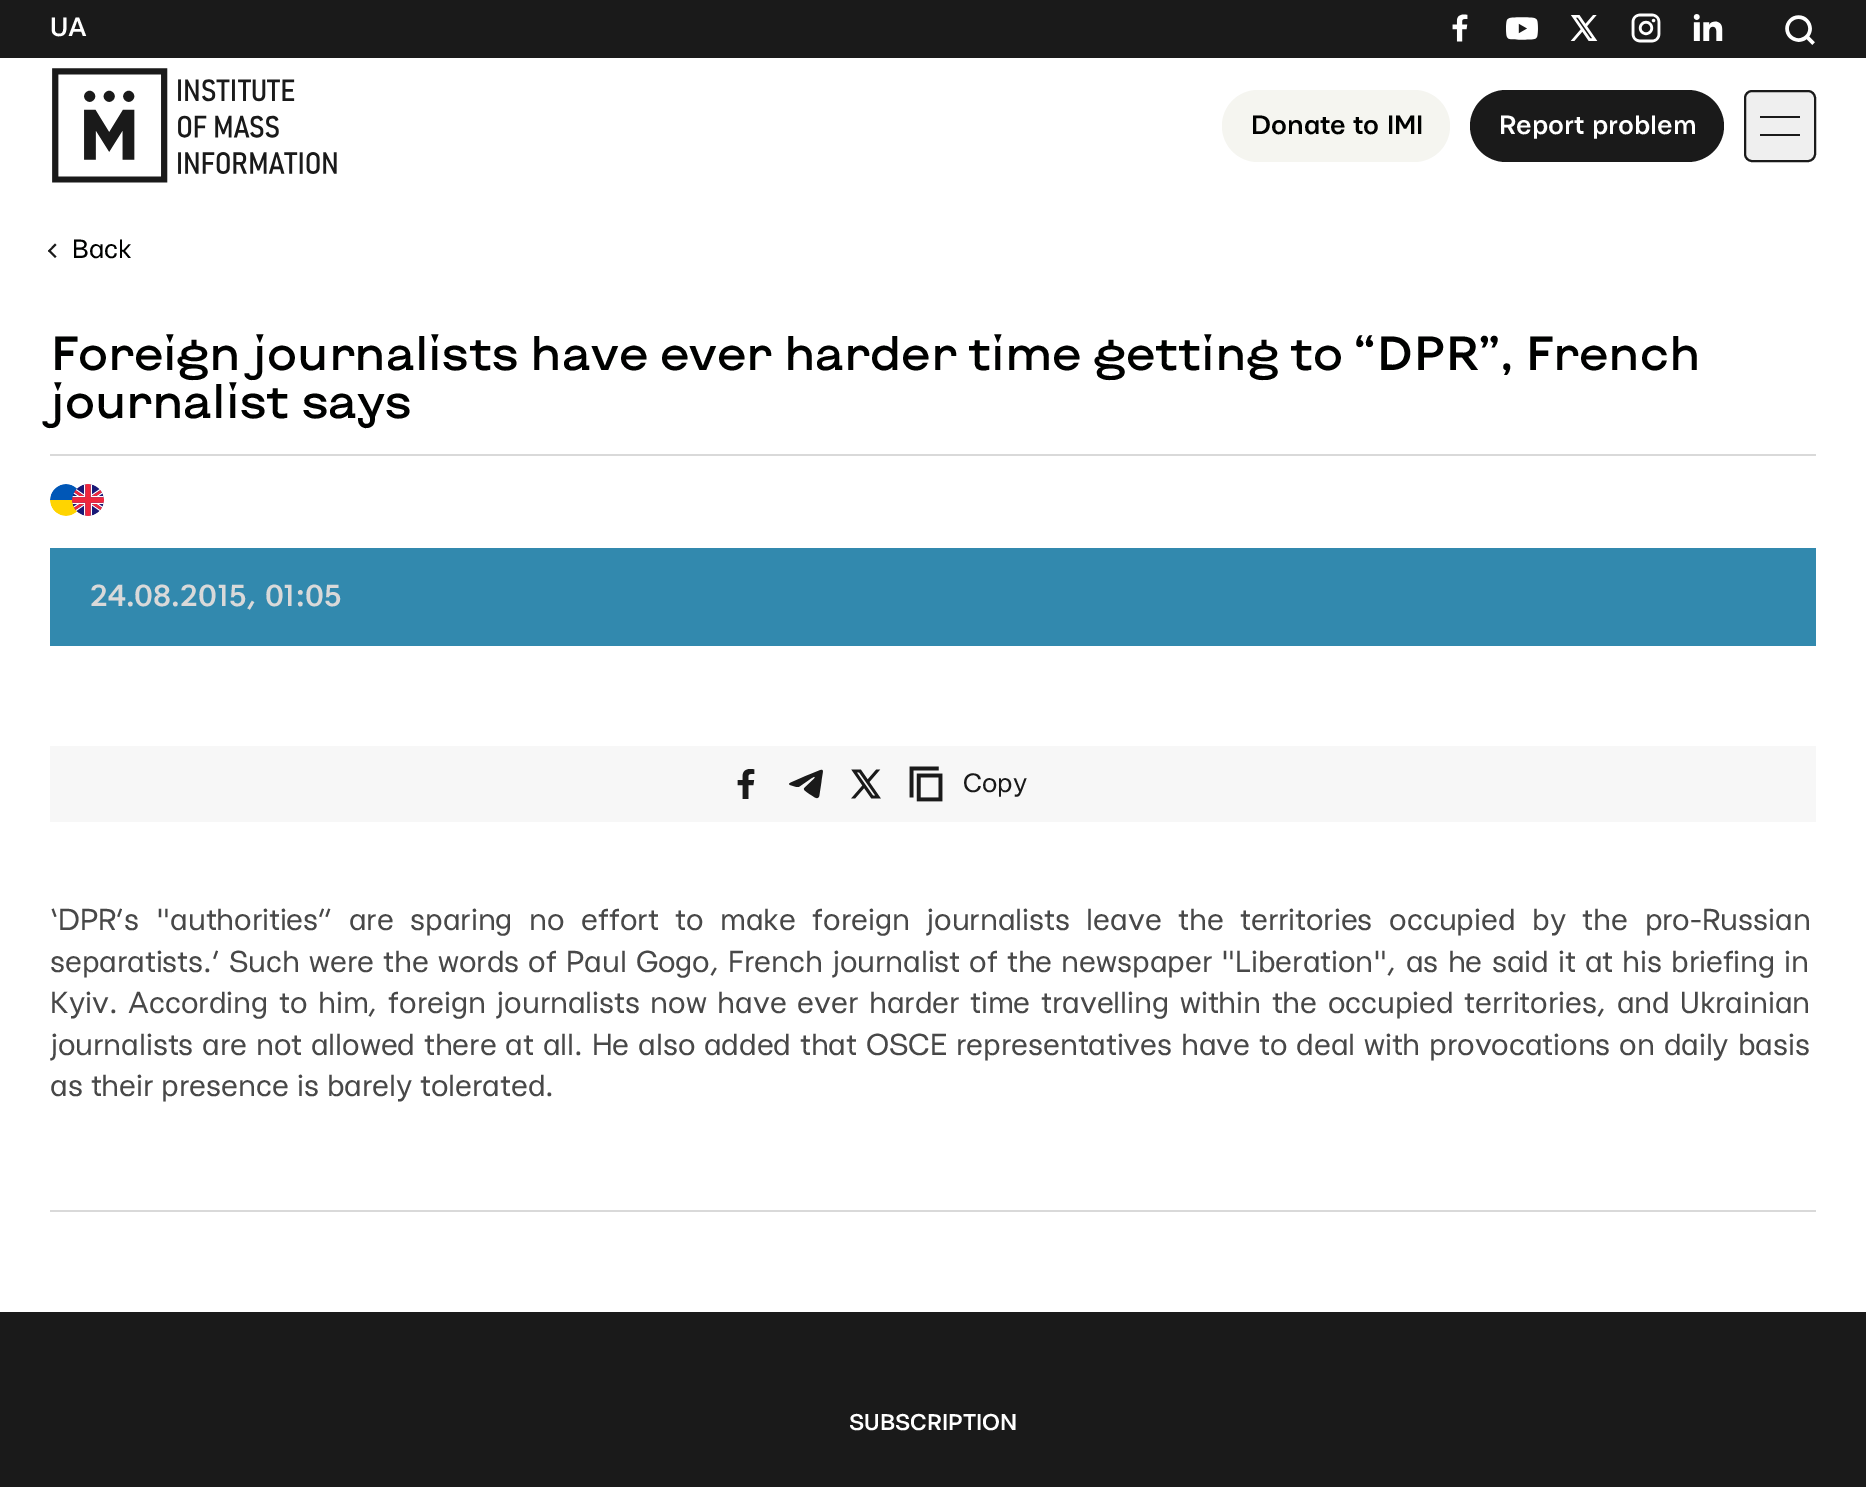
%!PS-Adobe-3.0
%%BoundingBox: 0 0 1866 1487
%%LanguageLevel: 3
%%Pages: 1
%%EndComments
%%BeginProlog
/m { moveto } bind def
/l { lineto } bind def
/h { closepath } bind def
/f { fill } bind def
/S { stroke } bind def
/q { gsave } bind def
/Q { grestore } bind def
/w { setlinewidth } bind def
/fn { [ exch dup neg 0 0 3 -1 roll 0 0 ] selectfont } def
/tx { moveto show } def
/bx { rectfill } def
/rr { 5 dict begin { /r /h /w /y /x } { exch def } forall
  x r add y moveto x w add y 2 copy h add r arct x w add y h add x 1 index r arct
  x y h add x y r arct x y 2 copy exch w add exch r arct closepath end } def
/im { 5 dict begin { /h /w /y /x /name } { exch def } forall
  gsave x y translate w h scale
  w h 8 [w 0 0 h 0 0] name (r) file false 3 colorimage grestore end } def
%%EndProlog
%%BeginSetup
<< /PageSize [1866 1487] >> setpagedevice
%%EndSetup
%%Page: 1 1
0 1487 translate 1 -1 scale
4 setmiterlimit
1 setgray
0 0 1866 1487 bx
0.102 setgray
0 0 1866 58 bx
/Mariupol-Medium 28 fn
1 setgray
(UA) 50 36 tx
(image0.raw) 1452 14 16 28 im
(image1.raw) 1506 17 32 23 im
(image2.raw) 1570 15 28 26 im
(image3.raw) 1631 13 30 30 im
(image4.raw) 1693 14 30 27 im
(image5.raw) 1785 15 30 30 im
(image6.raw) 52 68 285 115 im
0.961 0.961 0.941 setrgbcolor
1222 90 228 72 36 rr f
0 0.004 0 setrgbcolor
(Donate to ІМІ) 1251 134 tx
0.102 setgray
1470 90 254 72 36 rr f
1 setgray
(Report problem) 1499 134 tx
0.937 setgray
1745 91 70 70 7 rr q f Q
0.102 setgray
2 w
S
1760 116 40 2 bx
1760 134 40 2 bx
48 251 m 55 243.5 l 56.5 245 l 49.5 252 l h f
48 251 m 49.5 249.5 l 56.5 256.5 l 55 258 l h f
/Mariupol-Regular 28 fn
0 0.004 0 setrgbcolor
(Back) 72 258 tx
0.851 setgray
50 454 1766 2 bx
/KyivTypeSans-Medium 48 fn
0 0.004 0 setrgbcolor
(Foreign journalists have ever harder time getting to “DPR”, French) 50 370 tx
(journalist says) 50 418 tx
(image7.raw) 50 484 54 32 im
0.196 0.537 0.682 setrgbcolor
50 548 1766 98 bx
/Mariupol-Medium 32 fn
0.851 setgray
(24.08.2015, 01:05) 90 606 tx
50 1210 1766 2 bx
0.969 setgray
50 746 1766 76 bx
(image8.raw) 737 769 18 30 im
(image9.raw) 789 769 34 30 im
(image10.raw) 851 769 30 30 im
(image11.raw) 909 766 34 36 im
/Mariupol-Regular 28 fn
0.102 setgray
(Copy) 963 792 tx
/Mariupol-Regular 32 fn
0.282 setgray
50 930 m 8.6 0 32 (‘DPR’s "authorities” are sparing no effort to make foreign journalists leave the territories occupied by the pro-Russian) widthshow
50 972 m 1.1 0 32 (separatists.’ Such were the words of Paul Gogo, French journalist of the newspaper "Liberation", as he said it at his briefing in) widthshow
50 1013 m 2.6 0 32 (Kyiv. According to him, foreign journalists now have ever harder time travelling within the occupied territories, and Ukrainian) widthshow
50 1055 m 0.8 0 32 (journalists are not allowed there at all. He also added that OSCE representatives have to deal with provocations on daily basis) widthshow
(as their presence is barely tolerated.) 50 1096 tx
0.102 setgray
0 1312 1866 175 bx
/Mariupol-Medium 24 fn
1 setgray
(SUBSCRIPTION) 849 1430 tx
showpage
%%EOF
